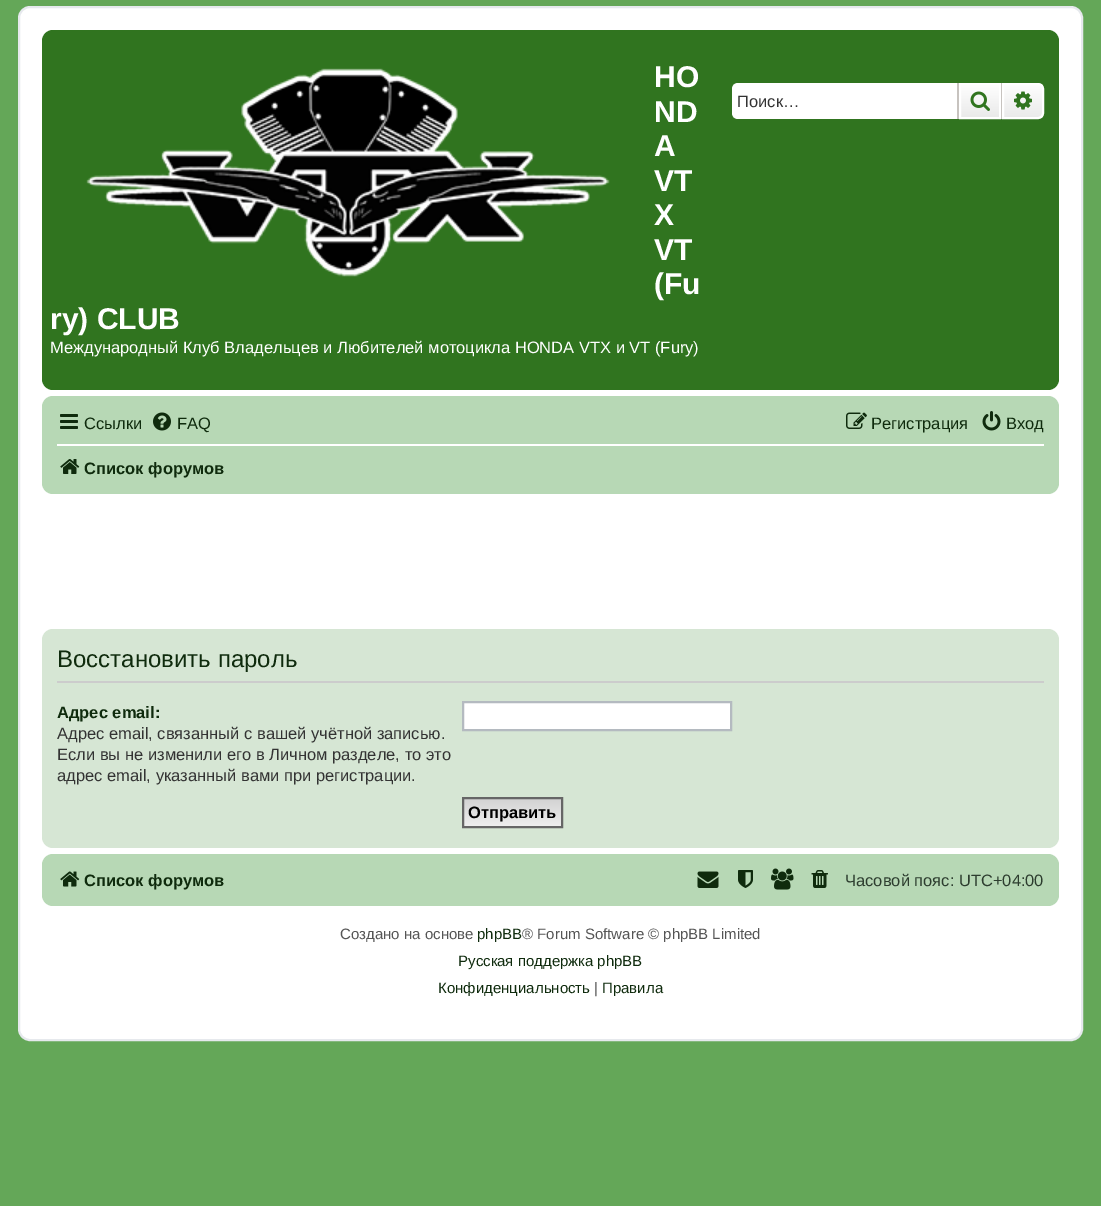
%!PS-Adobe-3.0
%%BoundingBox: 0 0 1101 1206
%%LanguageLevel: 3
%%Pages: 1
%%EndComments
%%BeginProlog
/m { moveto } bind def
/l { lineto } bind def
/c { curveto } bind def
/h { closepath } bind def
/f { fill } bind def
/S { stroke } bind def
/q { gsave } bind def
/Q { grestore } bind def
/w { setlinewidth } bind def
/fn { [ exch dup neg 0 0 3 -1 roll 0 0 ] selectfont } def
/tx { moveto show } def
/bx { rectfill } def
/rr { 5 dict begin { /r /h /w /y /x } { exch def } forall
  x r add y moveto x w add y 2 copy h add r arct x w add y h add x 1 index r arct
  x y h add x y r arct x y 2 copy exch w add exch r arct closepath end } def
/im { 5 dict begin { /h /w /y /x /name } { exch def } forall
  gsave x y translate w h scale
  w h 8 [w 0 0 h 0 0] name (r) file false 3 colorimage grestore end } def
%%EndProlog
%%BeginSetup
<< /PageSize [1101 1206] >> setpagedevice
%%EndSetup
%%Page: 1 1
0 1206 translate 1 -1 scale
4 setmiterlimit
0.392 0.655 0.345 setrgbcolor
0 0 1101 1206 bx
1 setgray
19 7 1063 1033 11 rr q f Q
0.902 0.914 0.929 setrgbcolor
2 w
S
0.188 0.455 0.122 setrgbcolor
42 30 1017 360 11 rr f
/LiberationSans-Bold 30 fn
1 setgray
(HO) 654 87 tx
(ND) 654 122 tx
(A) 654 156 tx
(VT) 654 191 tx
(X) 654 225 tx
(VT) 654 260 tx
(\(Fu) 654 294 tx
(ry\) CLUB) 50 329 tx
(image0.raw) 86 68 524 209 im
/LiberationSans-Regular 16.5 fn
(Международный Клуб Владельцев и Любителей мотоцикла HONDA VTX и VT \(Fury\)) 50 353 tx
738 83 m 957 83 l 957 119 l 738 119 l 734.5 119 732 116.5 732 113 c 732 89 l 732 85.5 734.5 83 738 83 c h f
0.2 setgray
(Поиск…) 737 107 tx
q 961 85 m 999 85 l 999 117 l 961 117 l h clip newpath
<< /ShadingType 2 /ColorSpace /DeviceRGB /Coords [980 83 980 119] /Extend [true true] /Function << /FunctionType 2 /Domain [0 1] /C0 [1 1 1] /C1 [0.914 0.914 0.914] /N 1 >> >> shfill Q
1 setgray
960 84 40 34 rectstroke
0.78 0.765 0.749 setrgbcolor
1001 83 1 36 bx
957 83 2 36 bx
(image1.raw) 970 91 20 20 im
q 1003 84 m 1038 84 l 1041 84 1043 86 1043 89 c 1043 113 l 1043 116 1041 118 1038 118 c 1003 118 l h clip newpath
<< /ShadingType 2 /ColorSpace /DeviceRGB /Coords [1023 83 1023 119] /Extend [true true] /Function << /FunctionType 2 /Domain [0 1] /C0 [1 1 1] /C1 [0.914 0.914 0.914] /N 1 >> >> shfill Q
1 setgray
1003 84 m 1038 84 l 1041 84 1043 86 1043 89 c 1043 113 l 1043 116 1041 118 1038 118 c 1003 118 l h S
(image2.raw) 1014 91 18 19 im
0.718 0.847 0.71 setrgbcolor
42 396 1017 98 11 rr f
(image3.raw) 60 414 18 15 im
0.059 0.169 0.051 setrgbcolor
(Ссылки) 84 429 tx
(image4.raw) 153 412 18 19 im
(FAQ) 177 429 tx
(image5.raw) 846 412 21 17 im
(Регистрация) 871 429 tx
(image6.raw) 982 411 19 20 im
(Вход) 1006 429 tx
1 setgray
57 444 987 2 bx
(image7.raw) 60 459 20 15 im
/LiberationSans-Bold 16.5 fn
0.059 0.169 0.051 setrgbcolor
(Список форумов) 84 474 tx
0.839 0.902 0.831 setrgbcolor
42 629 1017 219 11 rr f
0.8 setgray
57 681 987 2 bx
/LiberationSans-Regular 24 fn
0.059 0.169 0.051 setrgbcolor
(Восстановить пароль) 57 667 tx
/LiberationSans-Bold 16.5 fn
(Адрес email:) 57 718 tx
/LiberationSans-Regular 16.5 fn
0.2 setgray
(Адрес email, связанный с вашей учётной записью.) 57 739 tx
(Если вы не изменили его в Личном разделе, то это) 57 760 tx
(адрес email, указанный вами при регистрации.) 57 781 tx
1 setgray
463 702 m 731 702 l 731 730 l 463 730 l h q f Q
0.706 0.729 0.753 setrgbcolor
S
q 464 799 m 561 799 l 561 826 l 464 826 l h clip newpath
<< /ShadingType 2 /ColorSpace /DeviceRGB /Coords [512 798 512 827] /Extend [true true] /Function << /FunctionType 2 /Domain [0 1] /C0 [0.824 0.824 0.824] /C1 [0.937 0.937 0.937] /N 1 >> >> shfill Q
0.4 setgray
463 798 99 29 rectstroke
/LiberationSans-Bold 16.5 fn
0 setgray
(Отправить) 468 818 tx
0.718 0.847 0.71 setrgbcolor
42 854 1017 52 11 rr f
(image8.raw) 60 871 20 16 im
0.059 0.169 0.051 setrgbcolor
(Список форумов) 84 886 tx
(image9.raw) 697 871 22 17 im
(image10.raw) 738 870 15 18 im
(image11.raw) 771 868 23 22 im
(image12.raw) 811 870 17 18 im
/LiberationSans-Regular 16.5 fn
0.176 0.239 0.184 setrgbcolor
(Часовой пояс: UTC+04:00) 845 886 tx
/LiberationSans-Regular 15 fn
0.333 setgray
(Создано на основе) 340 939 tx
0.059 0.169 0.051 setrgbcolor
(phpBB) 477 939 tx
0.333 setgray
(® Forum Software © phpBB Limited) 522 939 tx
0.059 0.169 0.051 setrgbcolor
(Русская поддержка phpBB) 458 966 tx
(Конфиденциальность) 438 993 tx
0.333 setgray
(|) 594 993 tx
0.059 0.169 0.051 setrgbcolor
(Правила) 602 993 tx
showpage
%%EOF
